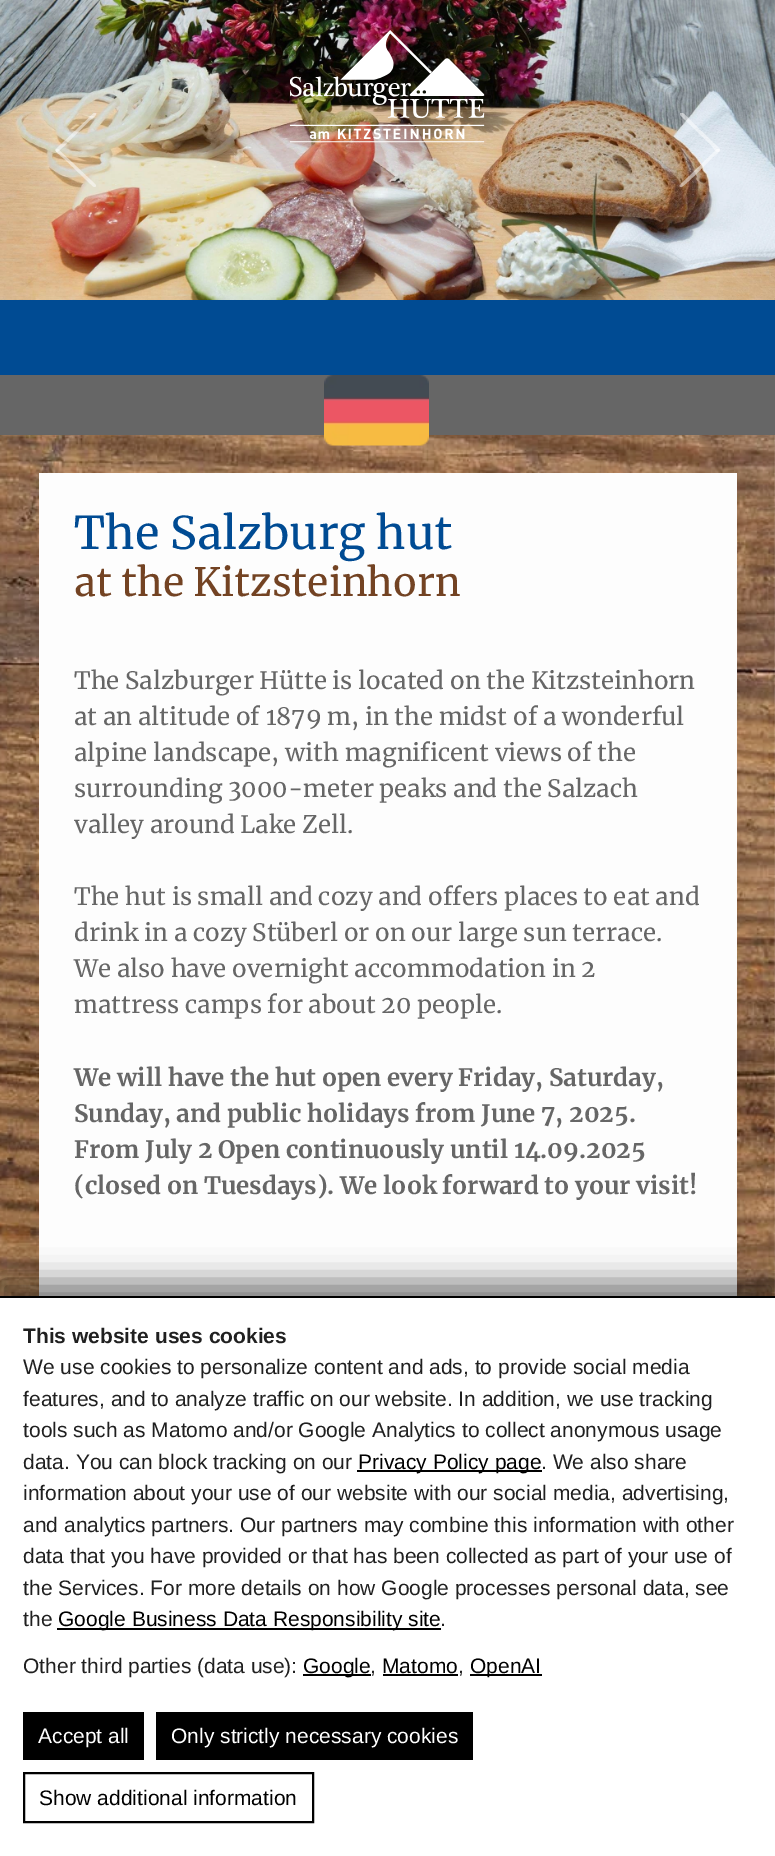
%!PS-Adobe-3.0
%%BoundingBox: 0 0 775 1856
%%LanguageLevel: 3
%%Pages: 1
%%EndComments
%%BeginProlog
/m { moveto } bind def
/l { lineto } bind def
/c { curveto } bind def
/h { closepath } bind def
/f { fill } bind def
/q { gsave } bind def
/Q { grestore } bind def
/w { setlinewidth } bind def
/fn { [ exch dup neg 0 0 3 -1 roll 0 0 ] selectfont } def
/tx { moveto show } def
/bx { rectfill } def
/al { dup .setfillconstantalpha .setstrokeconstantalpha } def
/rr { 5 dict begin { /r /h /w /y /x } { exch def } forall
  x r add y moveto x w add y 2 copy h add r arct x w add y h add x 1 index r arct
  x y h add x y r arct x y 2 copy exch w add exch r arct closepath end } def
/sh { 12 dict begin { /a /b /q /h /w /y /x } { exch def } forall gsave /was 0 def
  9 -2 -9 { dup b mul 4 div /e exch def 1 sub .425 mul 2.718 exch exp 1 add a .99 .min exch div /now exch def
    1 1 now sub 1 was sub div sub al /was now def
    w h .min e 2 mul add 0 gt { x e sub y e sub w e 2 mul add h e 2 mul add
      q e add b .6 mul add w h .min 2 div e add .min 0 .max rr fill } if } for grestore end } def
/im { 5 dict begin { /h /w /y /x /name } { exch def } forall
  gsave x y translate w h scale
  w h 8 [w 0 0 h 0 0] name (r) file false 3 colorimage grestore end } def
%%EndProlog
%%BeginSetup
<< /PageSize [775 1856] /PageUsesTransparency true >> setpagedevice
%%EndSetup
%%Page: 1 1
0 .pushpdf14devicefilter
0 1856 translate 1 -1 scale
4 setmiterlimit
1 setgray
0 0 775 1856 bx
(image0.raw) 0 435 775 861 im
(image1.raw) 0 0 775 300 im
0.5 al
57 152 m 59 152 86 124 89 121 c 90 120 97 116 96 113 c 94 113 l 56 149 l 55 150 56 152 57 152 c h f
94 187 m 96 187 96 186 96 185 c 58 149 l 57 149 l 53 150 58 153 62 157 c 66 160 93 187 94 187 c h f
1 al
(image2.raw) 290 30 195 113 im
q
680 113 40 75 rectclip
0.5 al
718 152 m 715 152 713 147 711 145 c 680 115 l 679 114 680 112 681 112 c 683 112 693 123 695 125 c 720 149 l 720 150 719 152 718 152 c h f
Q
0.5 al
681 187 m 680 187 679 186 680 185 c 717 149 l 719 149 l 722 150 718 153 713 157 c 710 160 683 188 681 187 c h f
1 al
0.4 setgray
0 375 775 60 bx
0 0.294 0.576 setrgbcolor
0 300 775 75 bx
(image3.raw) 324 375 105 71 im
0.992 setgray
39 473 698 823 bx
/Merriweather-Regular 45 fn
0 0.294 0.576 setrgbcolor
(The Salzburg hut) 74 549 tx
/Merriweather-Regular 39 fn
0.451 0.263 0.137 setrgbcolor
(at the Kitzsteinhorn) 74 596 tx
/Merriweather-Regular 24 fn
0.4 setgray
(The Salzburger Hütte is located on the Kitzsteinhorn) 74 689 tx
(at an altitude of 1879 m, in the midst of a wonderful) 74 725 tx
(alpine landscape, with magnificent views of the) 74 761 tx
(surrounding 3000-meter peaks and the Salzach) 74 797 tx
(valley around Lake Zell.) 74 833 tx
(The hut is small and cozy and offers places to eat and) 74 905 tx
(drink in a cozy Stüberl or on our large sun terrace.) 74 941 tx
(We also have overnight accommodation in 2) 74 977 tx
(mattress camps for about 20 people.) 74 1013 tx
/Merriweather-Bold 24 fn
(We will have the hut open every Friday, Saturday,) 74 1086 tx
(Sunday, and public holidays from June 7, 2025.) 74 1122 tx
(From July 2 Open continuously until 14.09.2025) 74 1158 tx
(\(closed on Tuesdays\). We look forward to your visit!) 74 1194 tx
0 setgray
0 1281 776 561 0 15 0.5 sh
1 setgray
0 1298 775 558 bx
0 setgray
0 1296 775 2 bx
/LiberationSans-Bold 21 fn
0.125 setgray
(This website uses cookies) 23 1343 tx
/LiberationSans-Regular 21 fn
(We use cookies to personalize content and ads, to provide social media) 23 1374 tx
(features, and to analyze traffic on our website. In addition, we use tracking) 23 1406 tx
(tools such as Matomo and/or Google Analytics to collect anonymous usage) 23 1437 tx
(data. You can block tracking on our) 23 1469 tx
0 setgray
357 1470 185 2 bx
(Privacy Policy page) 358 1469 tx
0.125 setgray
(. We also share) 541 1469 tx
(information about your use of our website with our social media, advertising,) 23 1500 tx
(and analytics partners. Our partners may combine this information with other) 23 1532 tx
(data that you have provided or that has been collected as part of your use of) 23 1563 tx
(the Services. For more details on how Google processes personal data, see) 23 1595 tx
(the) 23 1626 tx
0 setgray
57 1628 384 2 bx
(Google Business Data Responsibility site) 58 1626 tx
0.125 setgray
(.) 440 1626 tx
(Other third parties \(data use\):) 23 1673 tx
0 setgray
303 1674 68 2 bx
(Google) 303 1673 tx
0.125 setgray
(,) 370 1673 tx
0 setgray
(Matomo) 382 1673 tx
383 1674 75 2 bx
0.125 setgray
(,) 458 1673 tx
0 setgray
470 1674 72 2 bx
(OpenAI) 470 1673 tx
23 1712 121 48 bx
1 setgray
(Accept all) 38 1743 tx
0 setgray
156 1712 317 48 bx
1 setgray
(Only strictly necessary cookies) 171 1743 tx
0 setgray
2 w
24 1773 289 49 rectstroke
(Show additional information) 39 1805 tx
.poppdf14devicefilter showpage
%%EOF
